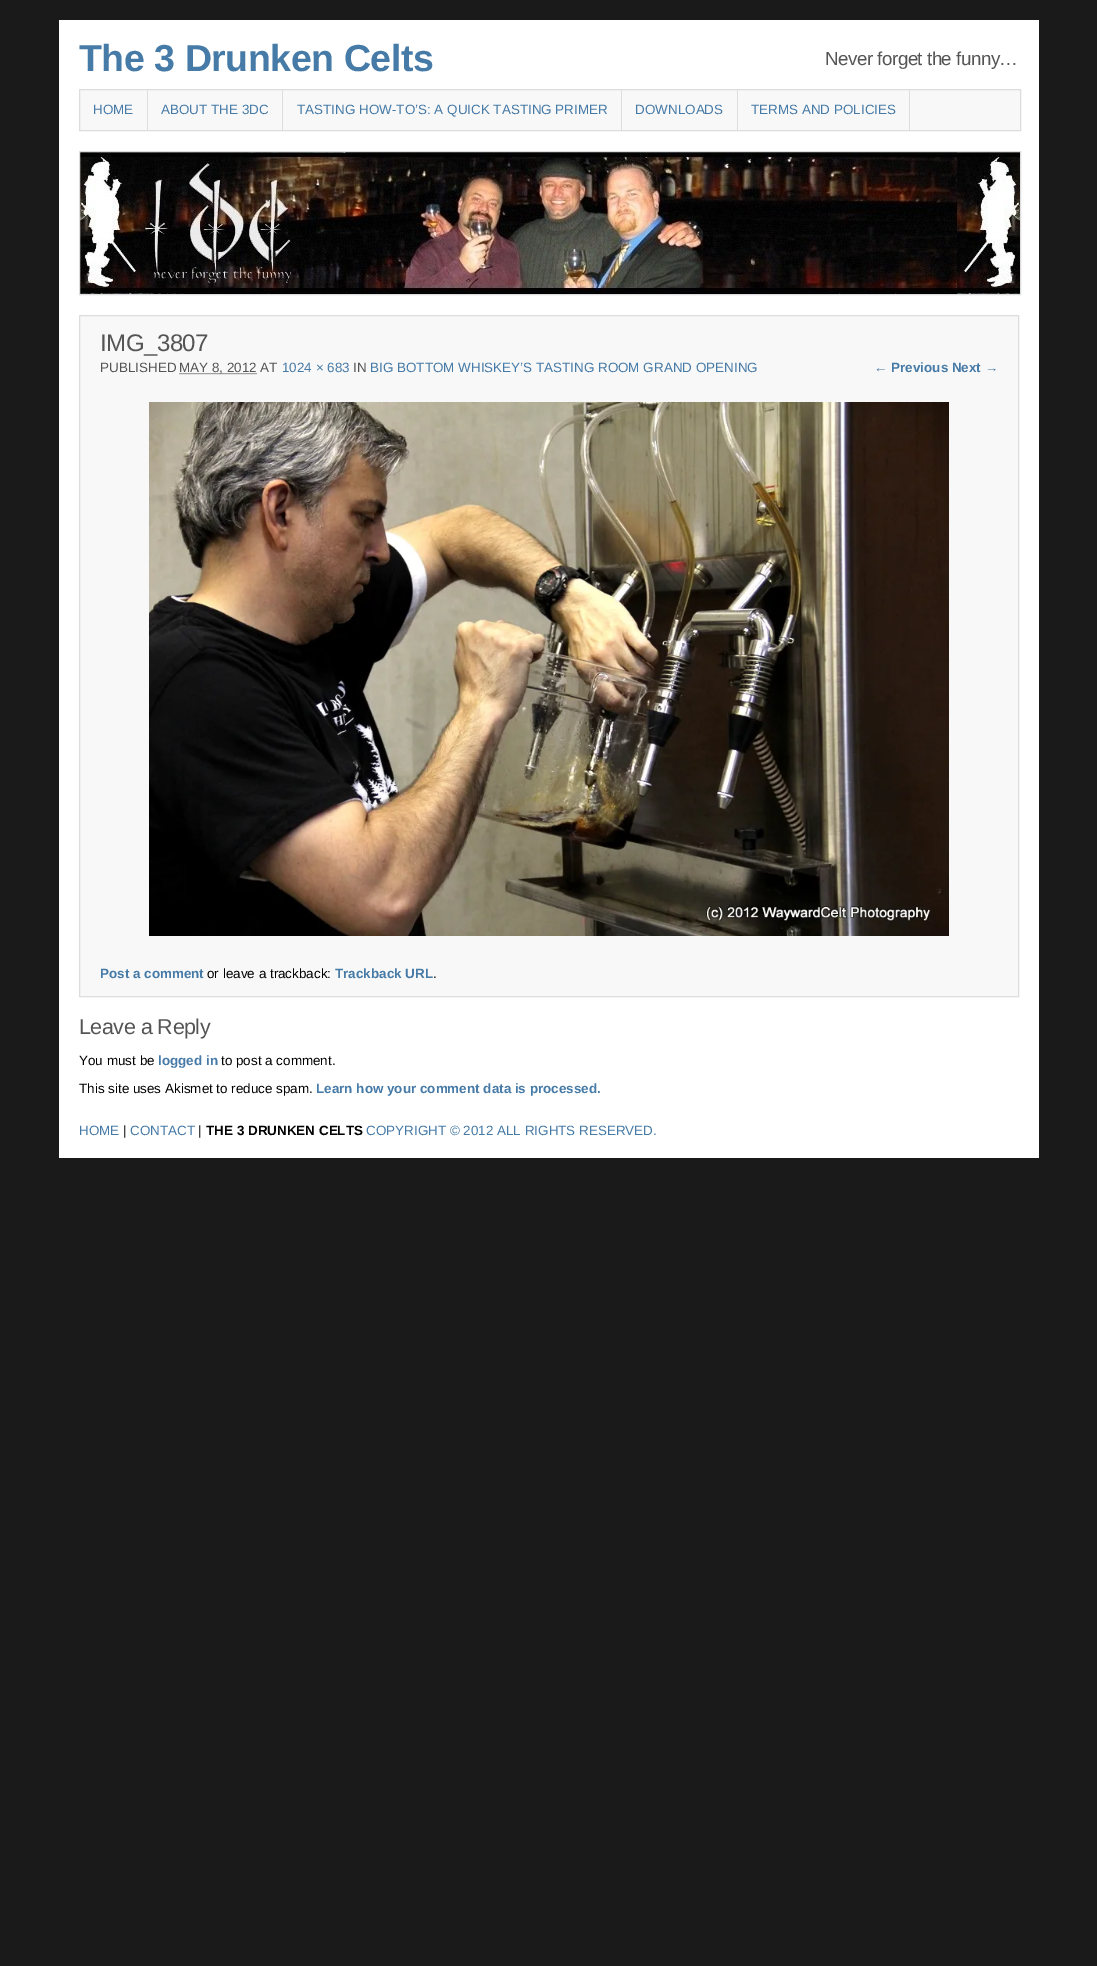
%!PS-Adobe-3.0
%%BoundingBox: 0 0 1097 1966
%%LanguageLevel: 3
%%Pages: 1
%%EndComments
%%BeginProlog
/m { moveto } bind def
/l { lineto } bind def
/h { closepath } bind def
/f { fill } bind def
/S { stroke } bind def
/q { gsave } bind def
/Q { grestore } bind def
/fn { [ exch dup neg 0 0 3 -1 roll 0 0 ] selectfont } def
/tx { moveto show } def
/bx { rectfill } def
/im { 5 dict begin { /h /w /y /x /name } { exch def } forall
  gsave x y translate w h scale
  w h 8 [w 0 0 h 0 0] name (r) file false 3 colorimage grestore end } def
%%EndProlog
%%BeginSetup
<< /PageSize [1097 1966] >> setpagedevice
%%EndSetup
%%Page: 1 1
0 1966 translate 1 -1 scale
4 setmiterlimit
0.102 setgray
0 0 1097 1966 bx
1 setgray
59 20 980 1138 bx
/LiberationSans-Bold 37.6 fn
0.275 0.478 0.655 setrgbcolor
79 71 m -0.5 0 (The 3 Drunken Celts) ashow
/LiberationSans-Regular 18.75 fn
0.333 setgray
825 65 m -0.5 0 (Never forget the funny…) ashow
0.973 setgray
79.5 89.5 m 1020.5 89.5 l 1020.5 130.5 l 79.5 130.5 l h q f Q
0.867 setgray
S
147 90 1 40 bx
/LiberationSans-Regular 13.45 fn
0.275 0.478 0.655 setrgbcolor
(HOME) 93 114 tx
0.867 setgray
282 90 1 40 bx
0.275 0.478 0.655 setrgbcolor
(ABOUT THE 3DC) 161 114 tx
0.867 setgray
621 90 1 40 bx
0.275 0.478 0.655 setrgbcolor
(TASTING HOW-TO’S: A QUICK TASTING PRIMER) 297 114 tx
0.867 setgray
737 90 1 40 bx
0.275 0.478 0.655 setrgbcolor
(DOWNLOADS) 635 114 tx
0.867 setgray
909 90 1 40 bx
0.275 0.478 0.655 setrgbcolor
(TERMS AND POLICIES) 751 114 tx
(image0.raw) 80 152 940 142 im
0.867 setgray
79.5 151.5 941 143 rectstroke
0.973 setgray
79.5 315.5 m 1018.5 315.5 l 1018.5 996.5 l 79.5 996.5 l h q f Q
0.867 setgray
S
/LiberationSans-Regular 24 fn
0.333 setgray
100 351 m -0.5 0 (IMG_3807) ashow
/LiberationSans-Regular 13.45 fn
(PUBLISHED) 100 372 tx
[1 1] 0 setdash
179.5 373.5 m 257 373.5 l S
(MAY 8, 2012 AT) 179 372 tx
0.275 0.478 0.655 setrgbcolor
(1024 × 683) 282 372 tx
0.333 setgray
(IN) 353 372 tx
0.275 0.478 0.655 setrgbcolor
(BIG BOTTOM WHISKEY’S TASTING ROOM GRAND OPENING) 370 372 tx
/LiberationSans-Bold 13.45 fn
(← Previous Next →) 874 372 tx
(image1.raw) 149 402 800 534 im
(Post a comment) 100 978 tx
/LiberationSans-Regular 13.45 fn
0 setgray
(or leave a trackback:) 207 978 tx
/LiberationSans-Bold 13.45 fn
0.275 0.478 0.655 setrgbcolor
(Trackback URL) 335 978 tx
/LiberationSans-Regular 13.45 fn
0 setgray
(.) 433 978 tx
/LiberationSans-Regular 21.5 fn
0.333 setgray
79 1034 m -0.5 0 (Leave a Reply) ashow
/LiberationSans-Regular 13.45 fn
0 setgray
(You must be) 79 1065 tx
/LiberationSans-Bold 13.45 fn
0.275 0.478 0.655 setrgbcolor
(logged in) 158 1065 tx
/LiberationSans-Regular 13.45 fn
0 setgray
(to post a comment.) 221 1065 tx
(This site uses Akismet to reduce spam.) 79 1093 tx
/LiberationSans-Bold 13.45 fn
0.275 0.478 0.655 setrgbcolor
(Learn how your comment data is processed.) 316 1093 tx
/LiberationSans-Regular 13.45 fn
(HOME) 79 1135 tx
0 setgray
(|) 123 1135 tx
0.275 0.478 0.655 setrgbcolor
(CONTACT) 130 1135 tx
0 setgray
(|) 198 1135 tx
/LiberationSans-Bold 13.45 fn
(THE 3 DRUNKEN CELTS) 206 1135 tx
/LiberationSans-Regular 13.45 fn
0.275 0.478 0.655 setrgbcolor
(COPYRIGHT © 2012 ALL RIGHTS RESERVED.) 366 1135 tx
showpage
%%EOF
